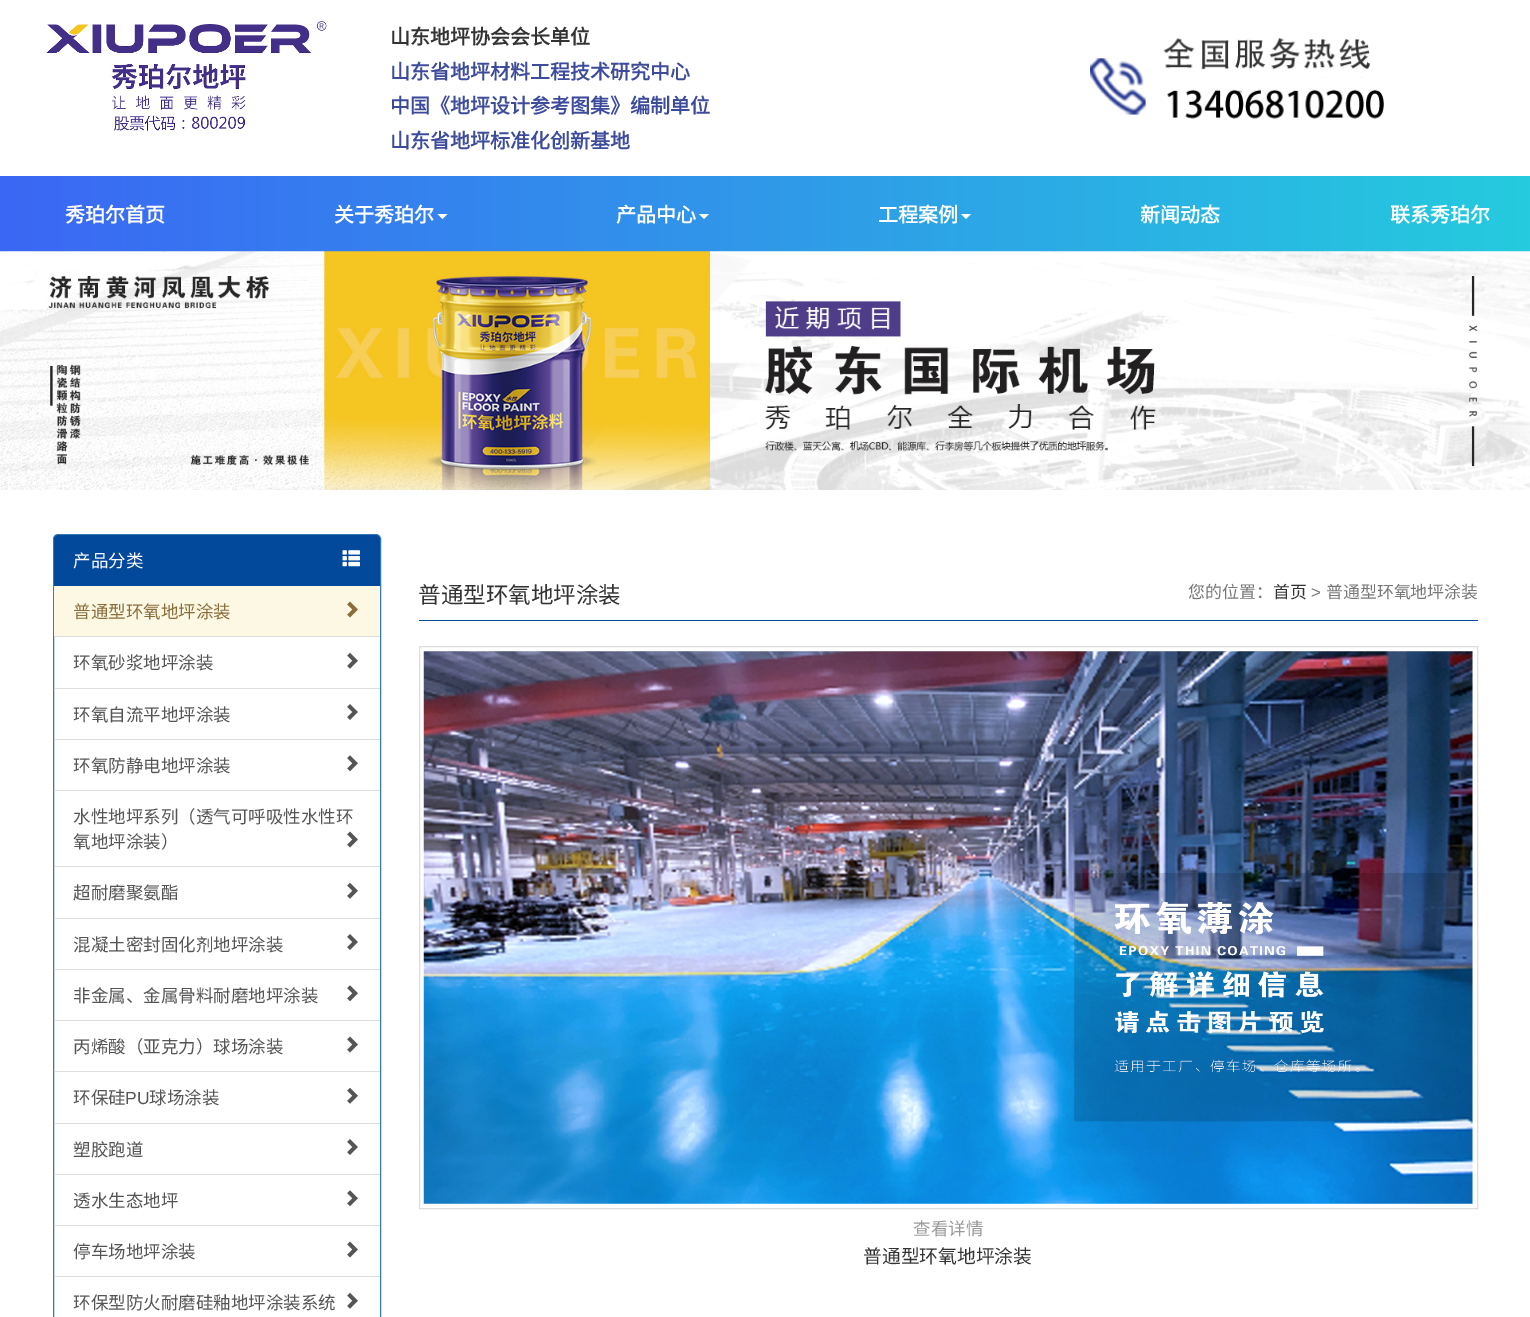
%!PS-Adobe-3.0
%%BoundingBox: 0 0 1530 1317
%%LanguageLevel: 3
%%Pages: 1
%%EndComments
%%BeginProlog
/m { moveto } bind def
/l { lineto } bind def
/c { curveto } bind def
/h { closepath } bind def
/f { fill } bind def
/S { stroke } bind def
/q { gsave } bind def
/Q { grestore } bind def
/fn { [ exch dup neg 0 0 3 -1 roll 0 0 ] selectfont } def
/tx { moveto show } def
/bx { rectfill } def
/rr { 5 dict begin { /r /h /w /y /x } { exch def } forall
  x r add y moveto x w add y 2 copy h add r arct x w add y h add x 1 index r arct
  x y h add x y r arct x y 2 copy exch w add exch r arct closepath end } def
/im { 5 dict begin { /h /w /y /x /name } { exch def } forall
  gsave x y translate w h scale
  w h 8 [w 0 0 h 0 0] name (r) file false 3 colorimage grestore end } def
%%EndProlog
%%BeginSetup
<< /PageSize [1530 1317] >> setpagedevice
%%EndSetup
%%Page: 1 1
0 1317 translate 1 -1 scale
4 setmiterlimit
1 setgray
0 0 1530 1317 bx
(image0.raw) 46 21 281 110 im
/NotoSansCJKSC-Bold 20 fn
0.2 setgray
(山东地坪协会会长单位) 390 44 tx
0.235 0.294 0.608 setrgbcolor
(山东省地坪材料工程技术研究中心) 390 79 tx
(中国《地坪设计参考图集》编制单位) 390 113 tx
(山东省地坪标准化创新基地) 390 148 tx
(image1.raw) 1090 37 294 82 im
q 0 176 m 1530 176 l 1530 252 l 0 252 l h clip newpath
<< /ShadingType 2 /ColorSpace /DeviceRGB /Coords [0 215 1530 215] /Extend [true true] /Function << /FunctionType 2 /Domain [0 1] /C0 [0.231 0.404 0.957] /C1 [0.145 0.796 0.871] /N 1 >> >> shfill Q
1 setgray
(秀珀尔首页) 65 222 tx
(关于秀珀尔) 334 222 tx
437.5 214 m 447.5 214 l 442.5 219 l h f
(产品中心) 616 222 tx
699 214 m 709 214 l 704 219 l h f
(工程案例) 878 222 tx
961 214 m 971 214 l 966 219 l h f
(新闻动态) 1140 222 tx
(联系秀珀尔) 1390 222 tx
(image2.raw) 0 251 1530 239 im
0.2 0.478 0.718 setrgbcolor
53.5 534.5 327 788 4.5 rr S
0.012 0.286 0.608 setrgbcolor
58 535 m 376 535 l 378 535 380 537 380 539 c 380 586 l 54 586 l 54 539 l 54 537 56 535 58 535 c h f
/NotoSansCJKSC-Regular 17.5 fn
1 setgray
(产品分类) 73 567 tx
(image3.raw) 342 550 18 17 im
0.988 0.973 0.89 setrgbcolor
54 586 326 50 bx
0.867 setgray
54 636 326 1 bx
0.541 0.427 0.231 setrgbcolor
(普通型环氧地坪涂装) 73 618 tx
(image4.raw) 347 601 11 17 im
0.867 setgray
54 688 326 1 bx
0.333 setgray
(环氧砂浆地坪涂装) 73 669 tx
(image5.raw) 347 652 11 17 im
0.867 setgray
54 739 326 1 bx
0.333 setgray
(环氧自流平地坪涂装) 73 721 tx
(image6.raw) 347 704 11 16 im
0.867 setgray
54 790 326 1 bx
0.333 setgray
(环氧防静电地坪涂装) 73 772 tx
(image7.raw) 347 755 11 17 im
0.867 setgray
54 866 326 1 bx
0.333 setgray
(水性地坪系列（透气可呼吸性水性环) 73 823 tx
(氧地坪涂装）) 73 848 tx
(image8.raw) 347 831 11 17 im
0.867 setgray
54 918 326 1 bx
0.333 setgray
(超耐磨聚氨酯) 73 899 tx
(image5.raw) 347 882 11 17 im
0.867 setgray
54 969 326 1 bx
0.333 setgray
(混凝土密封固化剂地坪涂装) 73 951 tx
(image6.raw) 347 934 11 16 im
0.867 setgray
54 1020 326 1 bx
0.333 setgray
(非金属、金属骨料耐磨地坪涂装) 73 1002 tx
(image7.raw) 347 985 11 17 im
0.867 setgray
54 1071 326 1 bx
0.333 setgray
(丙烯酸（亚克力）球场涂装) 73 1053 tx
(image8.raw) 347 1036 11 17 im
0.867 setgray
54 1123 326 1 bx
0.333 setgray
(环保硅) 73 1104 tx
/LiberationSans-Regular 17.5 fn
(PU) 125 1104 tx
/NotoSansCJKSC-Regular 17.5 fn
(球场涂装) 149 1104 tx
(image5.raw) 347 1087 11 17 im
0.867 setgray
54 1174 326 1 bx
0.333 setgray
(塑胶跑道) 73 1156 tx
(image6.raw) 347 1139 11 16 im
0.867 setgray
54 1225 326 1 bx
0.333 setgray
(透水生态地坪) 73 1207 tx
(image7.raw) 347 1190 11 17 im
0.867 setgray
54 1276 326 1 bx
0.333 setgray
(停车场地坪涂装) 73 1258 tx
(image8.raw) 347 1241 11 17 im
(环保型防火耐磨硅釉地坪涂装系统) 73 1309 tx
(image5.raw) 347 1292 11 17 im
0.012 0.286 0.608 setrgbcolor
419 620 1059 1 bx
/NotoSansCJKSC-Regular 22.5 fn
0.2 setgray
(普通型环氧地坪涂装) 418 603 tx
/NotoSansCJKSC-Regular 16.9 fn
0.467 setgray
(您的位置：) 1188 598 tx
0.2 setgray
(首页) 1273 598 tx
/LiberationSans-Regular 16.9 fn
0.467 setgray
(>) 1311 598 tx
/NotoSansCJKSC-Regular 16.9 fn
(普通型环氧地坪涂装) 1326 598 tx
0.867 setgray
419.5 646.5 1058 562 rectstroke
(image9.raw) 423 651 1050 553 im
/NotoSansCJKSC-Regular 17.5 fn
0.6 setgray
(查看详情) 913 1235 tx
/NotoSansCJKSC-Regular 18.75 fn
0.2 setgray
(普通型环氧地坪涂装) 863 1263 tx
showpage
%%EOF
